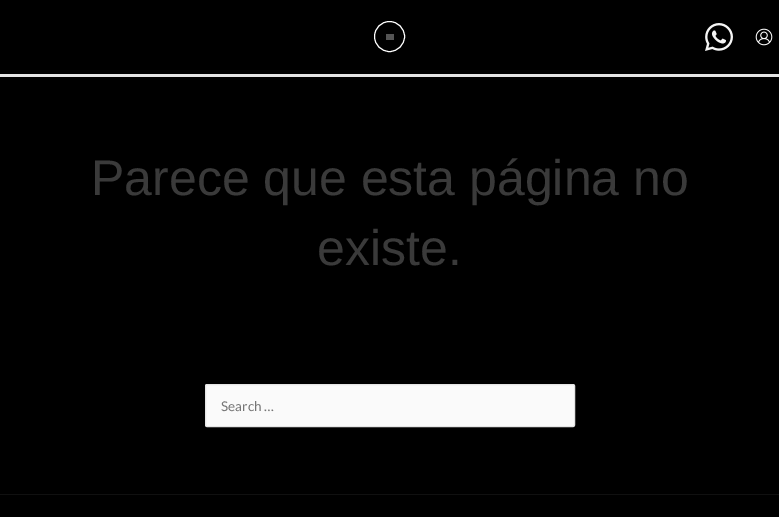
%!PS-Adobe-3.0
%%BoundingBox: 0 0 779 517
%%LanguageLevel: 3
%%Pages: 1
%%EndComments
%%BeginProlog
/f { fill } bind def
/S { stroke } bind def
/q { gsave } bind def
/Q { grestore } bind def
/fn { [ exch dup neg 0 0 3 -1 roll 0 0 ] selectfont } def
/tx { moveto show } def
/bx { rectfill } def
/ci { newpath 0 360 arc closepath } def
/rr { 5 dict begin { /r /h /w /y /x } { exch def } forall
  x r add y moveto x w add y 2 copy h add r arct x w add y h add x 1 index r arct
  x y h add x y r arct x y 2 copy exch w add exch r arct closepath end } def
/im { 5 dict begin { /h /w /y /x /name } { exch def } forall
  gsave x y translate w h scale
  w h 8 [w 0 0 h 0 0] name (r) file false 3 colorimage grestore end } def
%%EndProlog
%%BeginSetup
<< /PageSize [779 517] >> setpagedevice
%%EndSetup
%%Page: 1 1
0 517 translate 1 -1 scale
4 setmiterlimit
0 setgray
0 0 779 517 bx
0.898 setgray
0 74 779 3 bx
1 setgray
389.5 36.5 15 ci S
0.329 setgray
386 34 8 6 bx
(image0.raw) 705 23 28 28 im
(image1.raw) 755 28 18 18 im
/LiberationSans-Regular 50 fn
0.227 setgray
(Parece que esta página no) 91 195 tx
(existe.) 317 265 tx
0.98 setgray
205.5 384.5 369 42 1.5 rr q f Q
0.898 setgray
S
/Lato-Regular 13.5 fn
0.459 setgray
(Search …) 221 411 tx
0.063 setgray
0 494 779 1 bx
showpage
%%EOF
